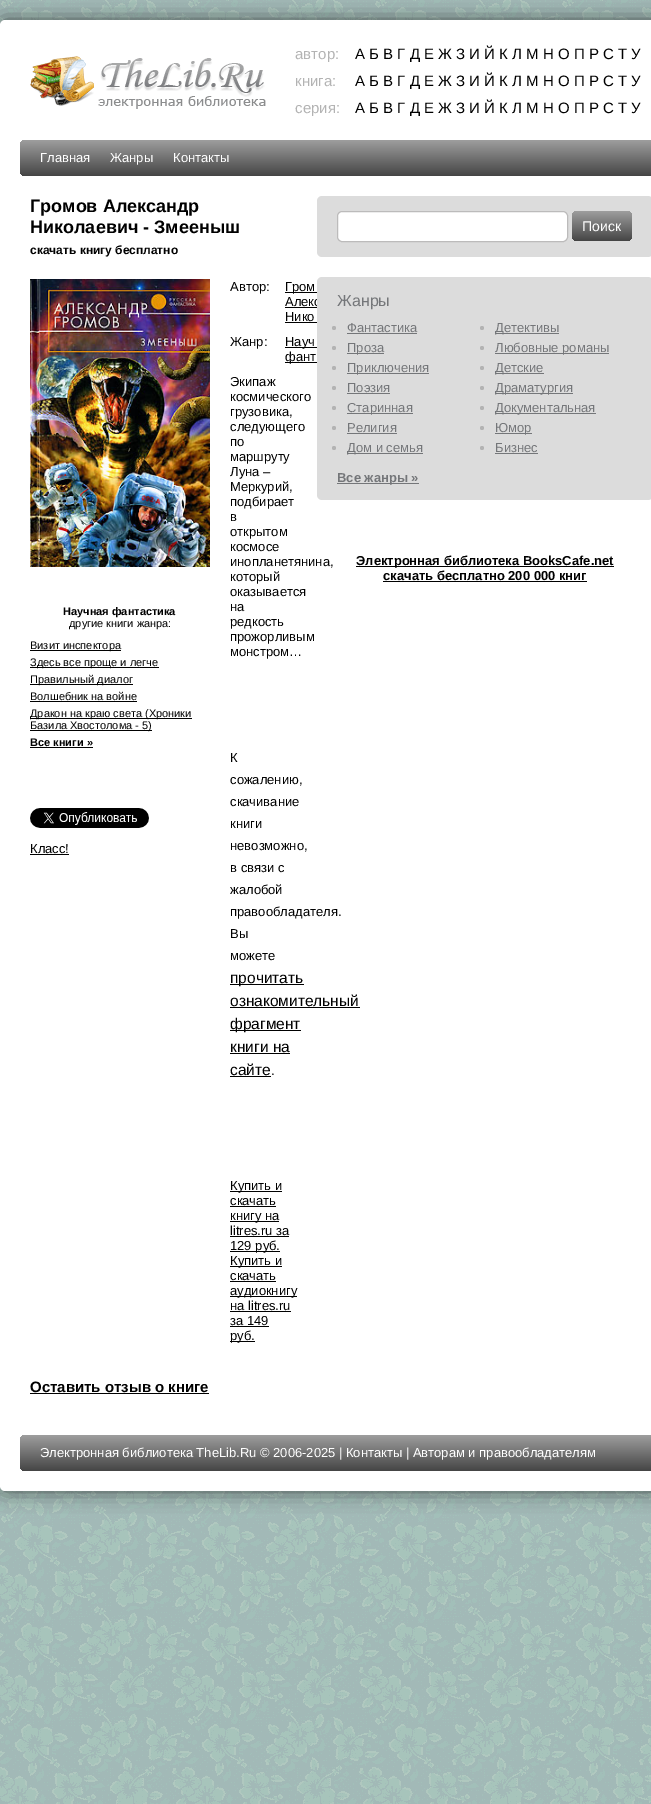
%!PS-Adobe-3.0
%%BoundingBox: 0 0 651 1804
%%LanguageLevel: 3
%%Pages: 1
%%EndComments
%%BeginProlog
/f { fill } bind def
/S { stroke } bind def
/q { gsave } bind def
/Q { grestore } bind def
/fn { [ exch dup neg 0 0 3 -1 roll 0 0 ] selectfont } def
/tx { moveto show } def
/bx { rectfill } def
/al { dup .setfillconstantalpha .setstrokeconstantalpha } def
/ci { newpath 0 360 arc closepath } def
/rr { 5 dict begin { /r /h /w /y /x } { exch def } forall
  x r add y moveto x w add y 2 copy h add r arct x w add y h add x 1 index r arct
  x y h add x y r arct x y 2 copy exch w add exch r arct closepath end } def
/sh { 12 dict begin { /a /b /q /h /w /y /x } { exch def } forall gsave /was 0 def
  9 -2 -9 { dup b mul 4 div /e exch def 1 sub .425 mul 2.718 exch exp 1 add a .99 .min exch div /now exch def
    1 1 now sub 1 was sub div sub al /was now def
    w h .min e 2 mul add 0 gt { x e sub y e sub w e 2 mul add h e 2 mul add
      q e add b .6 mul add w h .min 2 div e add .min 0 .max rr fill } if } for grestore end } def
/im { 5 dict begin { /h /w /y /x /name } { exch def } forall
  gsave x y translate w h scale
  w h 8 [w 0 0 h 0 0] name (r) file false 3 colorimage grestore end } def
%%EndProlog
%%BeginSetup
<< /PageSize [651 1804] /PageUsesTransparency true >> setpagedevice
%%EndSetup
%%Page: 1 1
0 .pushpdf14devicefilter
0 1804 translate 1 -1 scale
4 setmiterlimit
1 setgray
0 0 651 1804 bx
(image0.raw) 0 0 651 1804 im
0 setgray
0 20 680 1471 5 10 0.6 sh
1 setgray
0 20 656 1471 5 rr f
(image1.raw) 30 56 236 53 im
/LiberationSans-Regular 15 fn
0.702 setgray
(автор:) 295 59 tx
0 setgray
(А Б В Г Д Е Ж З И Й К Л М Н О П Р С Т У) 355 59 tx
0.702 setgray
(книга:) 295 86 tx
0 setgray
(А Б В Г Д Е Ж З И Й К Л М Н О П Р С Т У) 355 86 tx
0.702 setgray
(серия:) 295 113 tx
0 setgray
(А Б В Г Д Е Ж З И Й К Л М Н О П Р С Т У) 355 113 tx
q 20 140 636 36 5 rr clip newpath
<< /ShadingType 2 /ColorSpace /DeviceRGB /Coords [340 140 340 176] /Extend [true true] /Function << /FunctionType 2 /Domain [0 1] /C0 [0.62 0.62 0.62] /C1 [0.271 0.271 0.271] /N 1 >> >> shfill Q
/LiberationSans-Regular 13 fn
1 setgray
(Главная) 40 162 tx
(Жанры) 110 162 tx
(Контакты) 173 162 tx
/LiberationSans-Bold 18 fn
0 setgray
(Громов Александр) 30 212 tx
(Николаевич - Змееныш) 30 233 tx
/LiberationSans-Bold 12 fn
(скачать книгу бесплатно) 30 254 tx
(image2.raw) 30 279 180 288 im
/LiberationSans-Bold 11 fn
(Научная фантастика) 63 615 tx
/LiberationSans-Regular 11 fn
(другие книги жанра:) 69 627 tx
30 650 91 1 bx
(Визит инспектора) 30 649 tx
30 667 129 1 bx
(Здесь все проще и легче) 30 666 tx
30 684 103 1 bx
(Правильный диалог) 30 683 tx
(Волшебник на войне) 30 700 tx
30 701 107 1 bx
30 718 162 1 bx
(Дракон на краю света \(Хроники) 30 717 tx
30 730 122 1 bx
(Базила Хвостолома - 5\)) 30 729 tx
/LiberationSans-Bold 11 fn
(Все книги ») 30 746 tx
30 747 63 1 bx
(image3.raw) 30 808 119 20 im
/LiberationSans-Regular 13 fn
(Класс!) 30 853 tx
30 854 39 1 bx
(Автор:) 230 291 tx
285 292 32 1 bx
(Гром) 285 291 tx
(Алекс) 285 306 tx
285 307 32 1 bx
(Нико) 285 321 tx
285 322 32 1 bx
(Жанр:) 230 346 tx
285 347 32 1 bx
(Науч) 285 346 tx
285 362 32 1 bx
(фант) 285 361 tx
(Экипаж) 230 386 tx
(космического) 230 401 tx
(грузовика,) 230 416 tx
(следующего) 230 431 tx
(по) 230 446 tx
(маршруту) 230 461 tx
(Луна –) 230 476 tx
(Меркурий,) 230 491 tx
(подбирает) 230 506 tx
(в) 230 521 tx
(открытом) 230 536 tx
(космосе) 230 551 tx
(инопланетянина,) 230 566 tx
(который) 230 581 tx
(оказывается) 230 596 tx
(на) 230 611 tx
(редкость) 230 626 tx
(прожорливым) 230 641 tx
(монстром…) 230 656 tx
(К) 230 762 tx
(сожалению,) 230 784 tx
(скачивание) 230 806 tx
(книги) 230 828 tx
(невозможно,) 230 850 tx
(в связи с) 230 872 tx
(жалобой) 230 894 tx
(правообладателя.) 230 916 tx
(Вы) 230 938 tx
(можете) 230 960 tx
230 984 74 1 bx
/LiberationSans-Regular 15.5 fn
(прочитать) 230 983 tx
(ознакомительный) 230 1006 tx
230 1007 130 1 bx
230 1030 71 1 bx
(фрагмент) 230 1029 tx
(книги на) 230 1052 tx
230 1053 60 1 bx
(сайте) 230 1075 tx
230 1076 41 1 bx
/LiberationSans-Regular 13 fn
(.) 271 1075 tx
230 1191 52 1 bx
(Купить и) 230 1190 tx
(скачать) 230 1205 tx
230 1206 46 1 bx
230 1221 49 1 bx
(книгу на) 230 1220 tx
(litres.ru за) 230 1235 tx
230 1236 59 1 bx
230 1251 50 1 bx
(129 руб.) 230 1250 tx
230 1266 52 1 bx
(Купить и) 230 1265 tx
(скачать) 230 1280 tx
230 1281 46 1 bx
230 1296 67 1 bx
(аудиокнигу) 230 1295 tx
(на litres.ru) 230 1310 tx
230 1311 61 1 bx
(за 149) 230 1325 tx
230 1326 39 1 bx
230 1341 25 1 bx
(руб.) 230 1340 tx
/LiberationSans-Bold 15 fn
(Оставить отзыв о книге) 30 1392 tx
30 1393 179 1 bx
0.863 setgray
317 196 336 61 5 rr f
1 setgray
337.5 211.5 230 30 4.5 rr q f Q
0.737 0.733 0.733 setrgbcolor
S
q 572 211 60 30 5 rr clip newpath
<< /ShadingType 2 /ColorSpace /DeviceRGB /Coords [602 211 602 241] /Extend [true true] /Function << /FunctionType 2 /Domain [0 1] /C0 [0.62 0.62 0.62] /C1 [0.271 0.271 0.271] /N 1 >> >> shfill Q
/LiberationSans-Regular 14 fn
1 setgray
(Поиск) 582 231 tx
0.863 setgray
317 277 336 223 5 rr f
/LiberationSans-Regular 16 fn
0.455 0.463 0.475 setrgbcolor
(Жанры) 337 306 tx
0.702 setgray
334 328 2 ci f
/LiberationSans-Regular 13 fn
0.455 0.463 0.475 setrgbcolor
(Фантастика) 347 332 tx
347 333 70 1 bx
0.702 setgray
482 328 2 ci f
0.455 0.463 0.475 setrgbcolor
495 333 64 1 bx
(Детективы) 495 332 tx
0.702 setgray
334 348 2 ci f
0.455 0.463 0.475 setrgbcolor
347 353 37 1 bx
(Проза) 347 352 tx
0.702 setgray
482 348 2 ci f
0.455 0.463 0.475 setrgbcolor
495 353 114 1 bx
(Любовные романы) 495 352 tx
0.702 setgray
334 368 2 ci f
0.455 0.463 0.475 setrgbcolor
347 373 82 1 bx
(Приключения) 347 372 tx
0.702 setgray
482 368 2 ci f
0.455 0.463 0.475 setrgbcolor
495 373 49 1 bx
(Детские) 495 372 tx
0.702 setgray
334 388 2 ci f
0.455 0.463 0.475 setrgbcolor
(Поэзия) 347 392 tx
347 393 43 1 bx
0.702 setgray
482 388 2 ci f
0.455 0.463 0.475 setrgbcolor
495 393 78 1 bx
(Драматургия) 495 392 tx
0.702 setgray
334 408 2 ci f
0.455 0.463 0.475 setrgbcolor
347 413 66 1 bx
(Старинная) 347 412 tx
0.702 setgray
482 408 2 ci f
0.455 0.463 0.475 setrgbcolor
495 413 101 1 bx
(Документальная) 495 412 tx
0.702 setgray
334 428 2 ci f
0.455 0.463 0.475 setrgbcolor
(Религия) 347 432 tx
347 433 50 1 bx
0.702 setgray
482 428 2 ci f
0.455 0.463 0.475 setrgbcolor
495 433 37 1 bx
(Юмор) 495 432 tx
0.702 setgray
334 448 2 ci f
0.455 0.463 0.475 setrgbcolor
347 453 76 1 bx
(Дом и семья) 347 452 tx
0.702 setgray
482 448 2 ci f
0.455 0.463 0.475 setrgbcolor
(Бизнес) 495 452 tx
495 453 43 1 bx
337 483 82 1 bx
/LiberationSans-Bold 13 fn
(Все жанры ») 337 482 tx
0 setgray
356 566 258 1 bx
(Электронная библиотека BooksCafe.net) 356 565 tx
(скачать бесплатно 200 000 книг) 383 580 tx
383 581 204 1 bx
q 20 1435 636 36 5 rr clip newpath
<< /ShadingType 2 /ColorSpace /DeviceRGB /Coords [340 1435 340 1471] /Extend [true true] /Function << /FunctionType 2 /Domain [0 1] /C0 [0.62 0.62 0.62] /C1 [0.271 0.271 0.271] /N 1 >> >> shfill Q
/LiberationSans-Regular 13 fn
1 setgray
(Электронная библиотека TheLib.Ru © 2006-2025 | Контакты | Авторам и правообладателям) 40 1457 tx
.poppdf14devicefilter showpage
%%EOF
